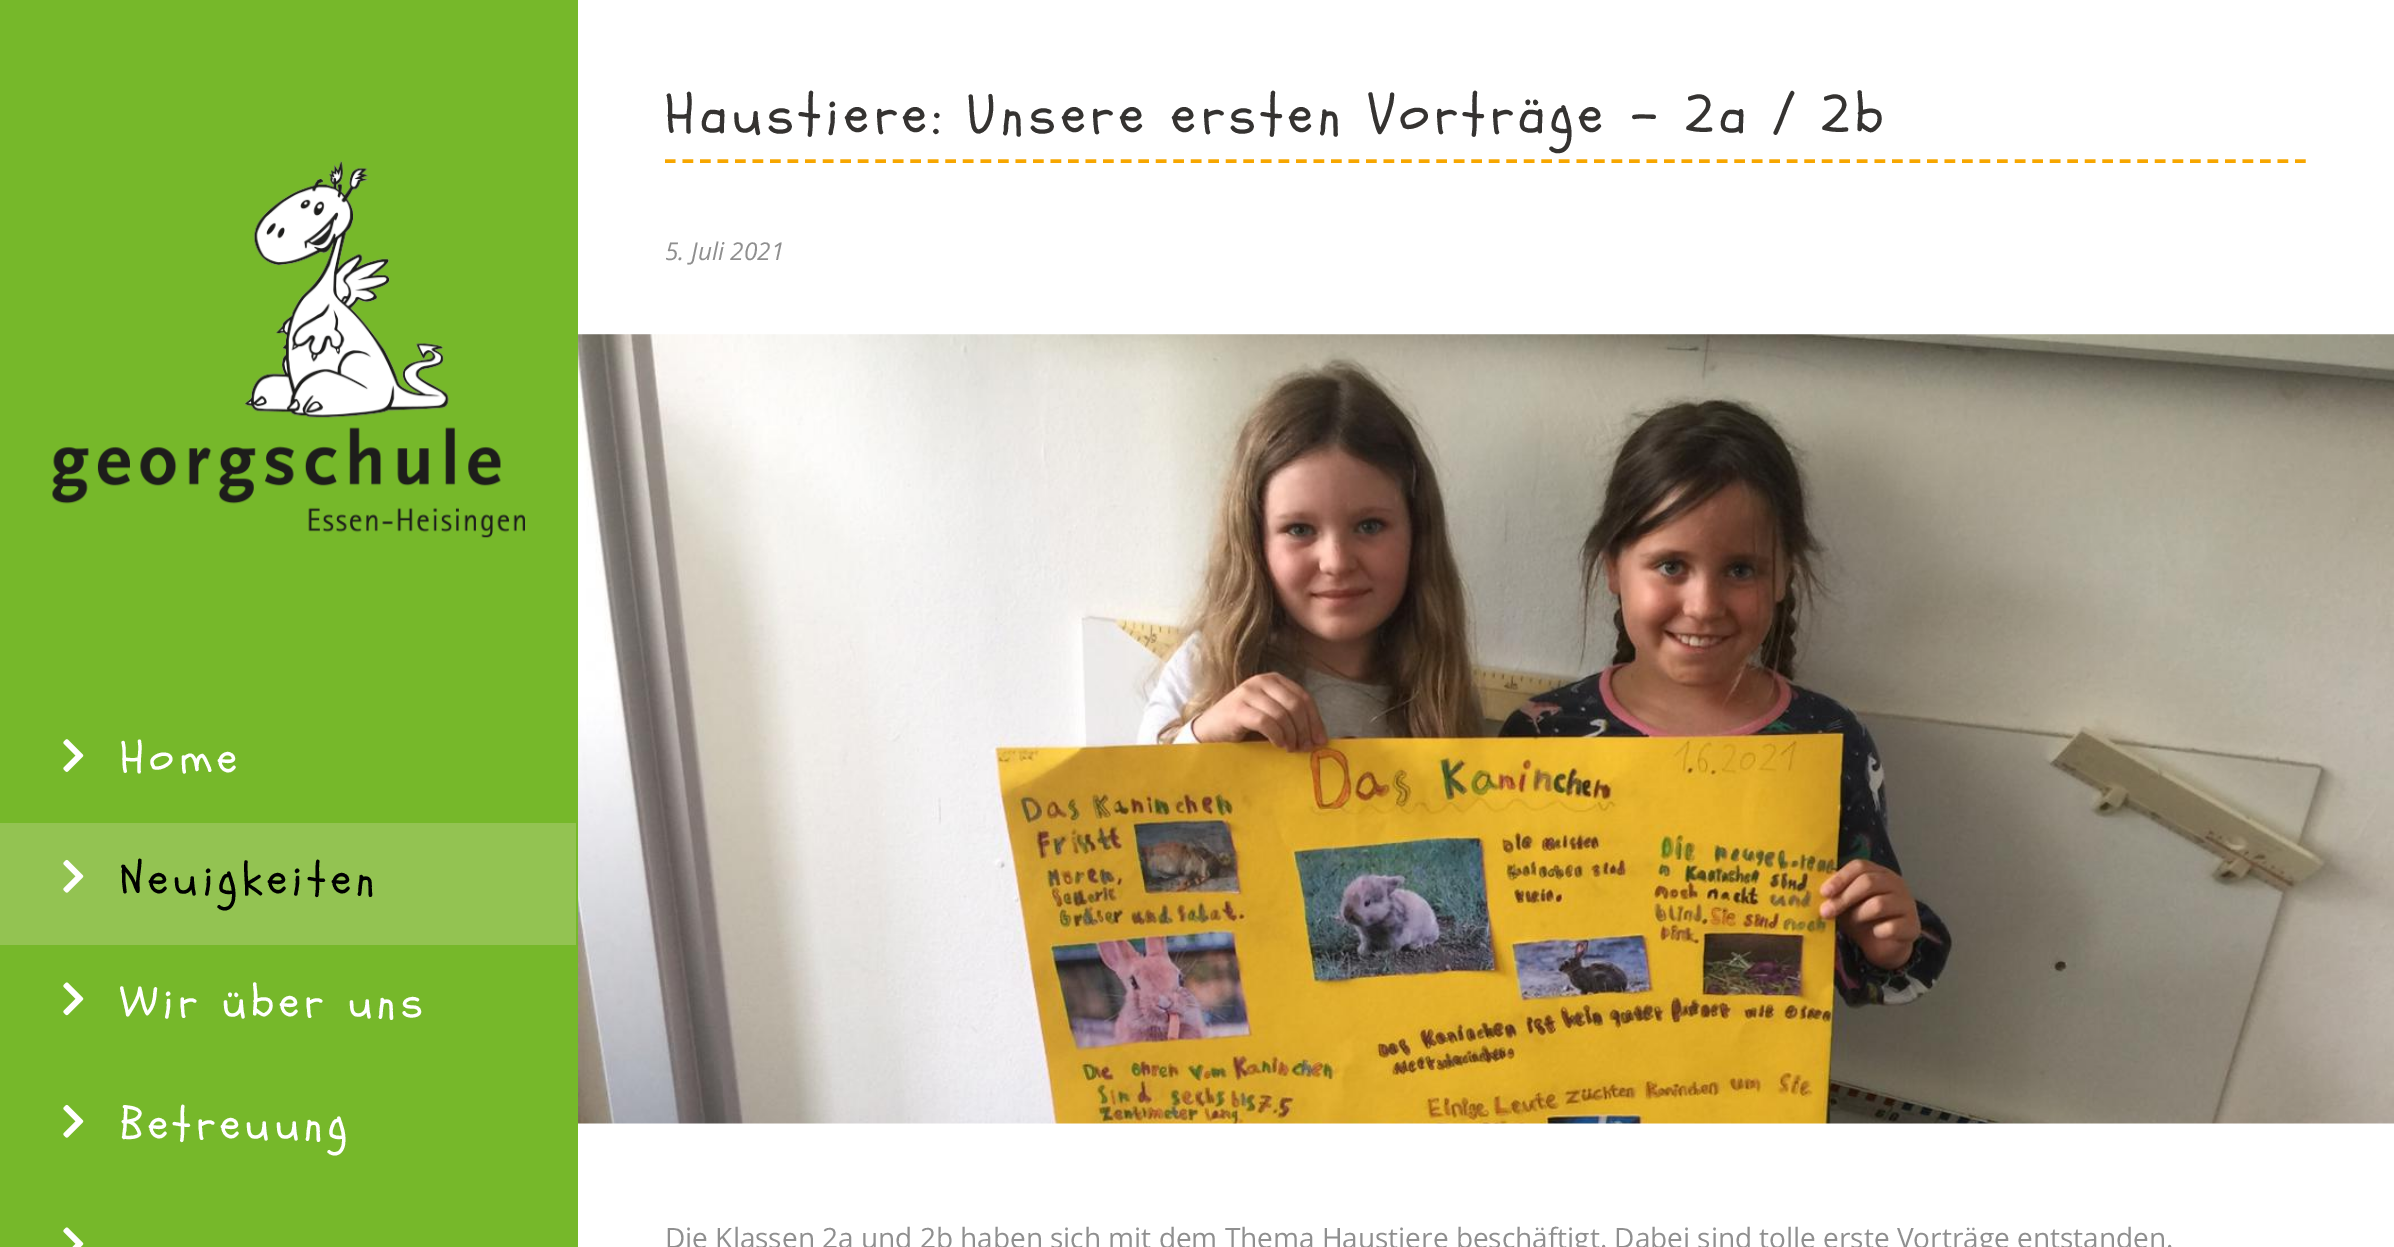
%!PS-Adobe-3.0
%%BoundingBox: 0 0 2394 1247
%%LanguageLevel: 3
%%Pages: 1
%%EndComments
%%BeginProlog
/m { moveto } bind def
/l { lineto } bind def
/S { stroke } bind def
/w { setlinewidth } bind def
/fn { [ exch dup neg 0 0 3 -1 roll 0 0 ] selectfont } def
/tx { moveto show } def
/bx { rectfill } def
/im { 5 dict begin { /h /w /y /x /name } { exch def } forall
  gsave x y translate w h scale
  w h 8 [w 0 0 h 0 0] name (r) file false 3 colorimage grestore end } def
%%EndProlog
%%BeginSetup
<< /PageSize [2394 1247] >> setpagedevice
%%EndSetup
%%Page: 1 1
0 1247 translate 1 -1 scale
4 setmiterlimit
1 setgray
0 0 2394 1247 bx
0.463 0.722 0.165 setrgbcolor
0 0 578 1247 bx
(image0.raw) 52 161 473 377 im
(image1.raw) 63 739 21 33 im
/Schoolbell-Regular 45.5 fn
1 setgray
120 773 m 5.25 0 (Home) ashow
0.576 0.765 0.322 setrgbcolor
0 823 576 122 bx
(image2.raw) 63 859 21 34 im
0 setgray
120 894 m 5.25 0 (Neuigkeiten) ashow
(image3.raw) 63 982 21 34 im
1 setgray
120 1017 m 5.25 0 (Wir über uns) ashow
(image4.raw) 63 1104 21 34 im
120 1139 m 5.25 0 (Betreuung) ashow
(image5.raw) 63 1227 21 20 im
0.969 0.651 0 setrgbcolor
3.5 w
[10.5 7.03] 0 setdash
665 161 m 2306.5 161 l S
/Schoolbell-Regular 56 fn
0.208 0.2 0.192 setrgbcolor
665 133 m 5.25 0 (Haustiere: Unsere ersten Vorträge – 2a / 2b) ashow
/OpenSans-Italic 24.5 fn
0.561 setgray
(5. Juli 2021) 665 260 tx
(image6.raw) 578 334 1816 790 im
/OpenSans-Regular 28 fn
(Die Klassen 2a und 2b haben sich mit dem Thema Haustiere beschäftigt. Dabei sind tolle erste Vorträge entstanden.) 665 1248 tx
showpage
%%EOF
